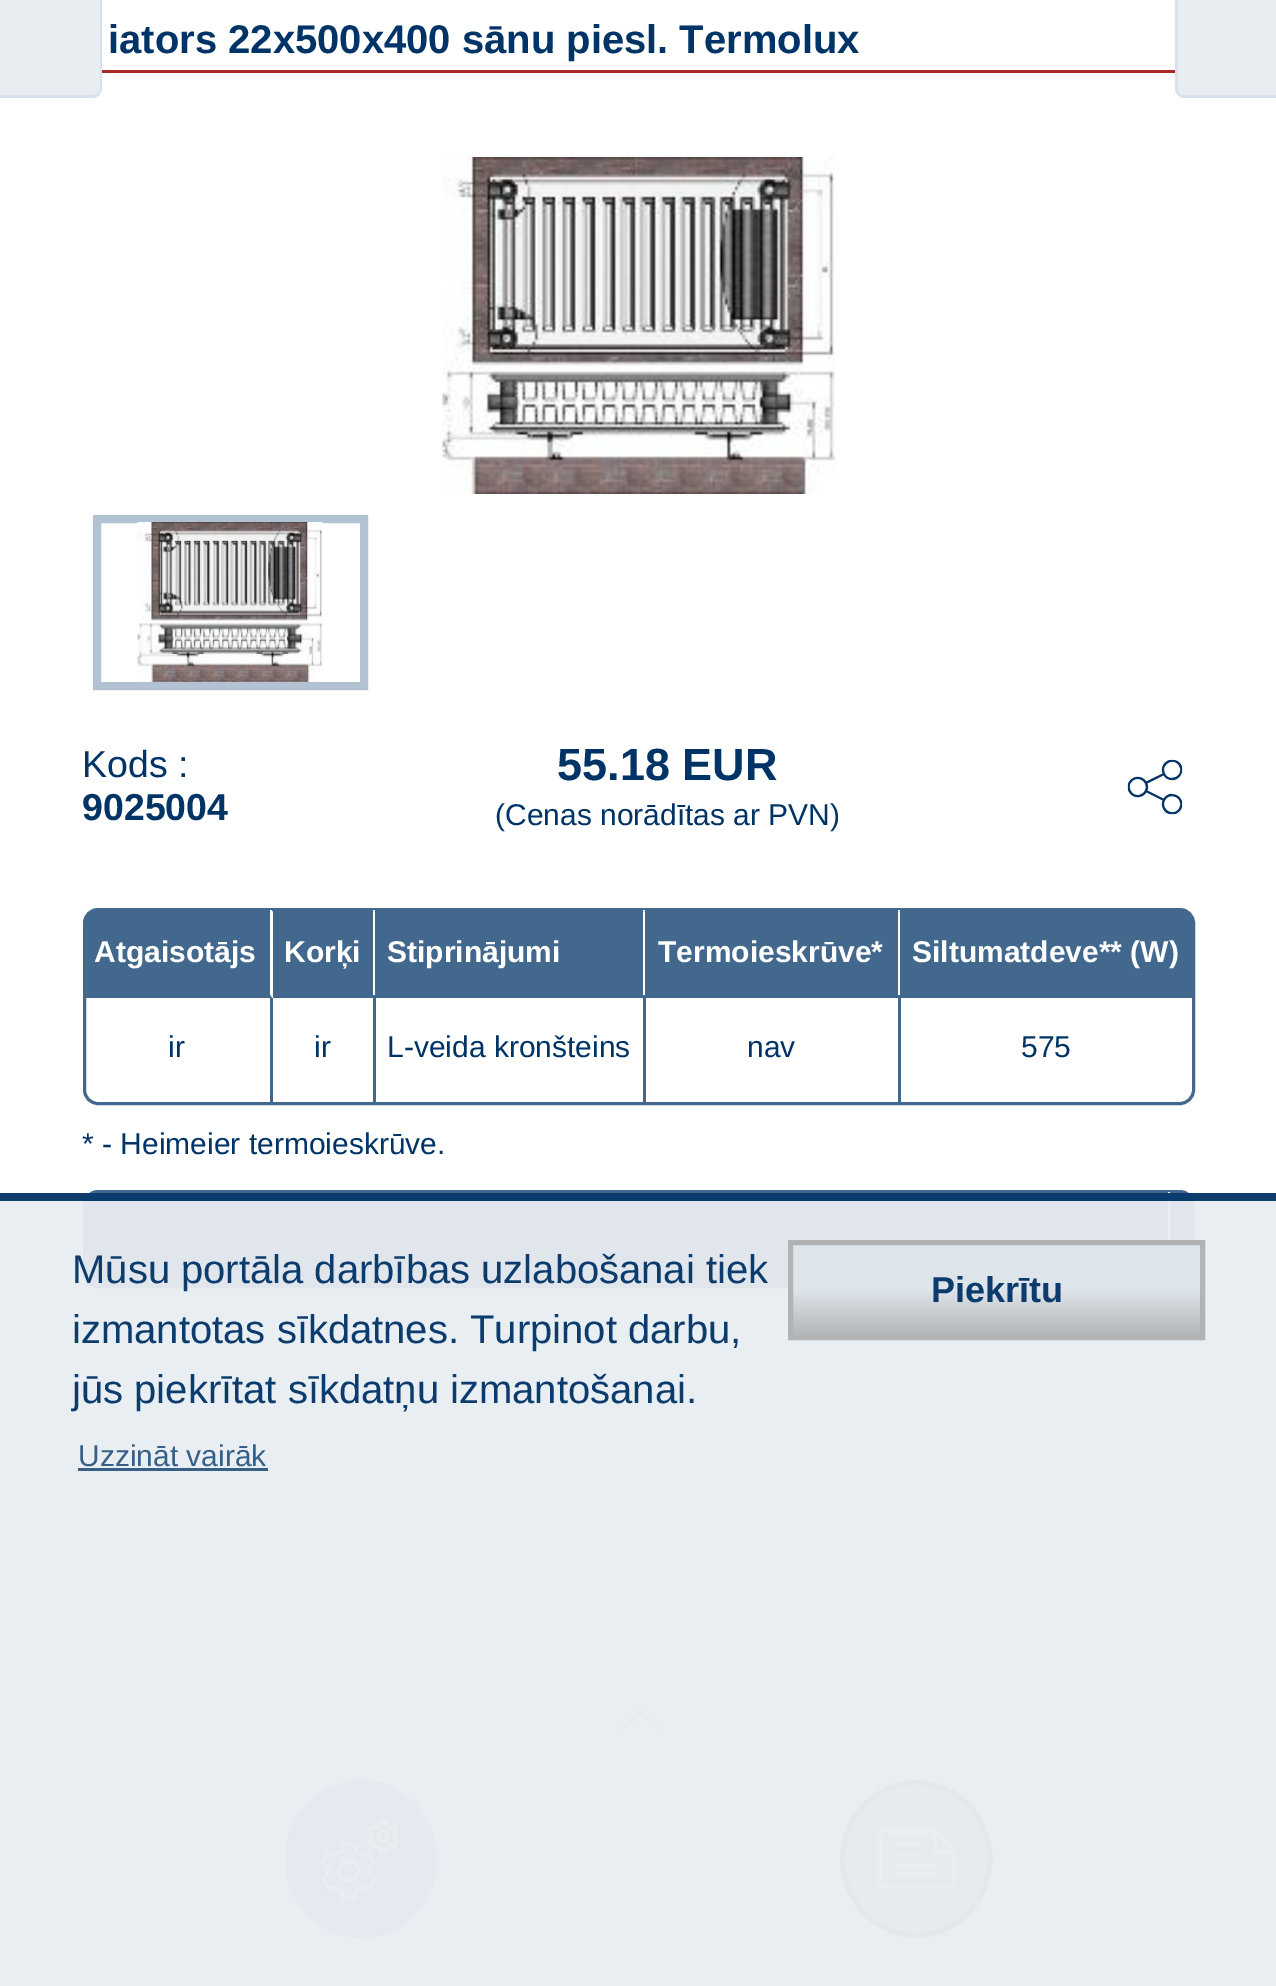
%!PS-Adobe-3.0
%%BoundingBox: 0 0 1276 1986
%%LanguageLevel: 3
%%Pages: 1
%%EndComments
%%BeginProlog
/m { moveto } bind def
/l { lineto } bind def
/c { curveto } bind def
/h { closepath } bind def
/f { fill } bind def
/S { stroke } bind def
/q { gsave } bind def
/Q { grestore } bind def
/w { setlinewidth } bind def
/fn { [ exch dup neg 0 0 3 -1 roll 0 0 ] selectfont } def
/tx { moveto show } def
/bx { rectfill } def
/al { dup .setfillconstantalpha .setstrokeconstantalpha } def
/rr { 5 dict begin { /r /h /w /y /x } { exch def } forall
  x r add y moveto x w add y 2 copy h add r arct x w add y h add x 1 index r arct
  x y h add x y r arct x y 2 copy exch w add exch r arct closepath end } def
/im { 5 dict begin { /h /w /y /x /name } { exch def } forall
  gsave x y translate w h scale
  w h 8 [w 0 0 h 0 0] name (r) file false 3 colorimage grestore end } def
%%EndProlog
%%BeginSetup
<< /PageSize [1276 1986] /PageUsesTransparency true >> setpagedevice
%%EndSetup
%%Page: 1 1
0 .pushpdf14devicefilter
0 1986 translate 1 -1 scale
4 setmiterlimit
1 setgray
0 0 1276 1986 bx
0.91 0.929 0.945 setrgbcolor
0 0 m 100 0 l 100 87 l 100 91.5 96.5 95 92 95 c 0 95 l h f
0.851 0.886 0.925 setrgbcolor
0 0 m 102 0 l 102 88 l 102 93 98 98 92 98 c 0 98 l h 0 0 m 100 0 l 100 88 l 100 92 97 95 92 95 c 0 95 l h eofill
0.659 0.161 0.149 setrgbcolor
102 70 1073 3 bx
/LiberationSans-Bold 40 fn
0 0.2 0.4 setrgbcolor
(iators 22x500x400 sānu piesl. Termolux) 108 53 tx
0.91 0.929 0.945 setrgbcolor
1178 0 m 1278 0 l 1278 95 l 1186 95 l 1181.5 95 1178 91.5 1178 87 c h f
0.851 0.886 0.925 setrgbcolor
1175 0 m 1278 0 l 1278 98 l 1185 98 l 1179 98 1175 93 1175 88 c h 1178 0 m 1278 0 l 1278 95 l 1185 95 l 1181 95 1178 92 1178 88 c h eofill
(image0.raw) 441 157 394 337 im
0.698 0.761 0.824 setrgbcolor
8 w
97 519 267 167 rectstroke
(image1.raw) 137 522 186 160 im
/LiberationSans-Regular 37.5 fn
0 0.2 0.4 setrgbcolor
(Kods :) 82 777 tx
/LiberationSans-Bold 37.5 fn
(9025004) 82 820 tx
/LiberationSans-Bold 45 fn
(55.18 EUR) 557 780 tx
/LiberationSans-Regular 30 fn
(\(Cenas norādītas ar PVN\)) 495 825 tx
(image2.raw) 1127 759 56 56 im
0.259 0.408 0.557 setrgbcolor
3 w
84.5 909.5 1109 194 13.5 rr S
95 910 m 270 910 l 270 995 l 85 995 l 85 920 l 85 914.5 89.5 910 95 910 c h f
1 setgray
272 910 m 270 910 l 270 995 l 272 997 l h f
0.259 0.408 0.557 setrgbcolor
270 995 m 85 995 l 85 998 l 272 998 l h f
/LiberationSans-Bold 30 fn
1 setgray
(Atgaisotājs) 94 962 tx
0.259 0.408 0.557 setrgbcolor
276 911 97 84 bx
1 setgray
373 910 2 1 bx
0.259 0.408 0.557 setrgbcolor
273 995 920 3 bx
273 910 3 88 bx
1 setgray
(Korķi) 284 962 tx
0.259 0.408 0.557 setrgbcolor
378 911 265 84 bx
1 setgray
643 910 2 1 bx
0.259 0.408 0.557 setrgbcolor
375 910 3 88 bx
1 setgray
(Stiprinājumi) 387 962 tx
0.259 0.408 0.557 setrgbcolor
648 911 250 84 bx
1 setgray
898 910 2 1 bx
0.259 0.408 0.557 setrgbcolor
645 910 3 88 bx
1 setgray
(Termoieskrūve*) 658 962 tx
0.259 0.408 0.557 setrgbcolor
903 910 m 1183 910 l 1188.5 910 1193 914.5 1193 920 c 1193 995 l 903 995 l h f
900 910 3 88 bx
1 setgray
(Siltumatdeve** \(W\)) 912 962 tx
0.259 0.408 0.557 setrgbcolor
270 998 3 105 bx
/LiberationSans-Regular 30 fn
0 0.2 0.4 setrgbcolor
(ir) 168 1057 tx
0.259 0.408 0.557 setrgbcolor
373 998 3 105 bx
0 0.2 0.4 setrgbcolor
(ir) 314 1057 tx
0.259 0.408 0.557 setrgbcolor
643 998 3 105 bx
0 0.2 0.4 setrgbcolor
(L-veida kronšteins) 387 1057 tx
0.259 0.408 0.557 setrgbcolor
898 998 3 105 bx
0 0.2 0.4 setrgbcolor
(nav) 747 1057 tx
(575) 1021 1057 tx
(* - Heimeier termoieskrūve.) 82 1154 tx
0.259 0.408 0.557 setrgbcolor
84.5 1191.5 1109 95 13.5 rr S
95 1193 m 1168 1193 l 1168 1283 l 85 1283 l 85 1203 l 85 1197.5 89.5 1193 95 1193 c h f
1 setgray
1170 1192 m 1170 1285 l 1167 1282 l 1168 1282 l 1168 1192 l h f
0.259 0.408 0.557 setrgbcolor
1170 1285 m 1167 1282 l 85 1282 l 85 1285 l h f
1173 1193 m 1183 1193 l 1188.5 1193 1193 1197.5 1193 1203 c 1193 1283 l 1173 1283 l h f
1170 1193 3 47 bx
(image3.raw) 621 1709 38 21 im
0.612 0.69 0.769 setrgbcolor
361 1780 m 403 1780 437 1815.5 437 1859 c 437 1902.5 403 1938 361 1938 c 319 1938 285 1902.5 285 1859 c 285 1815.5 319 1780 361 1780 c h f
5 w
361 1782.5 m 402 1782.5 435 1816.5 435 1859 c 435 1901 402 1935 361 1935 c 320.5 1935 287.5 1901 287.5 1859 c 287.5 1816.5 320.5 1782.5 361 1782.5 c h S
(image4.raw) 321 1820 78 79 im
0.8 setgray
916 1780 m 958 1780 992 1815.5 992 1859 c 992 1902.5 958 1938 916 1938 c 874 1938 840 1902.5 840 1859 c 840 1815.5 874 1780 916 1780 c h f
0.588 0.58 0.58 setrgbcolor
916 1782.5 m 957 1782.5 990 1816.5 990 1859 c 990 1901 957 1935 916 1935 c 875.5 1935 842.5 1901 842.5 1859 c 842.5 1816.5 875.5 1782.5 916 1782.5 c h S
(image5.raw) 878 1830 78 59 im
0.95 al
0.91 0.929 0.945 setrgbcolor
0 1193 1276 793 bx
0 0.2 0.4 setrgbcolor
0 1193 1276 8 bx
/LiberationSans-Regular 40 fn
1 al
0.043 0.235 0.427 setrgbcolor
(Mūsu portāla darbības uzlabošanai tiek) 72 1283 tx
(izmantotas sīkdatnes. Turpinot darbu,) 72 1343 tx
(jūs piekrītat sīkdatņu izmantošanai.) 72 1403 tx
/LiberationSans-Regular 30 fn
0.216 0.373 0.529 setrgbcolor
(Uzzināt vairāk) 78 1466 tx
0.76 al
0 0.2 0.4 setrgbcolor
78 1468 190 3 bx
1 al
q 788 1240 m 1205 1240 l 1205 1245 l 788 1245 l h clip newpath
<< /ShadingType 2 /ColorSpace /DeviceRGB /Coords [996 1155 996 1245] /Extend [true true] /Function << /FunctionType 3 /Domain [0 1] /Functions [<< /FunctionType 2 /Domain [0 1] /C0 [0.867 0.894 0.918] /C1 [0.867 0.894 0.918] /N 1 >> << /FunctionType 2 /Domain [0 1] /C0 [0.867 0.894 0.918] /C1 [0.706 0.718 0.725] /N 1 >>] /Bounds [0.5] /Encode [0 1 0 1] >> >> shfill Q
q 788 1245 m 1205 1245 l 1205 1335 l 788 1335 l h clip newpath
<< /ShadingType 2 /ColorSpace /DeviceRGB /Coords [996 1245 996 1335] /Extend [true true] /Function << /FunctionType 3 /Domain [0 1] /Functions [<< /FunctionType 2 /Domain [0 1] /C0 [0.867 0.894 0.918] /C1 [0.867 0.894 0.918] /N 1 >> << /FunctionType 2 /Domain [0 1] /C0 [0.867 0.894 0.918] /C1 [0.706 0.718 0.725] /N 1 >>] /Bounds [0.5] /Encode [0 1 0 1] >> >> shfill Q
0.95 al
0.694 setgray
790.5 1242.5 412 95 rectstroke
/LiberationSans-Bold 36 fn
1 al
0.043 0.235 0.427 setrgbcolor
(Piekrītu) 931 1302 tx
.poppdf14devicefilter showpage
%%EOF
